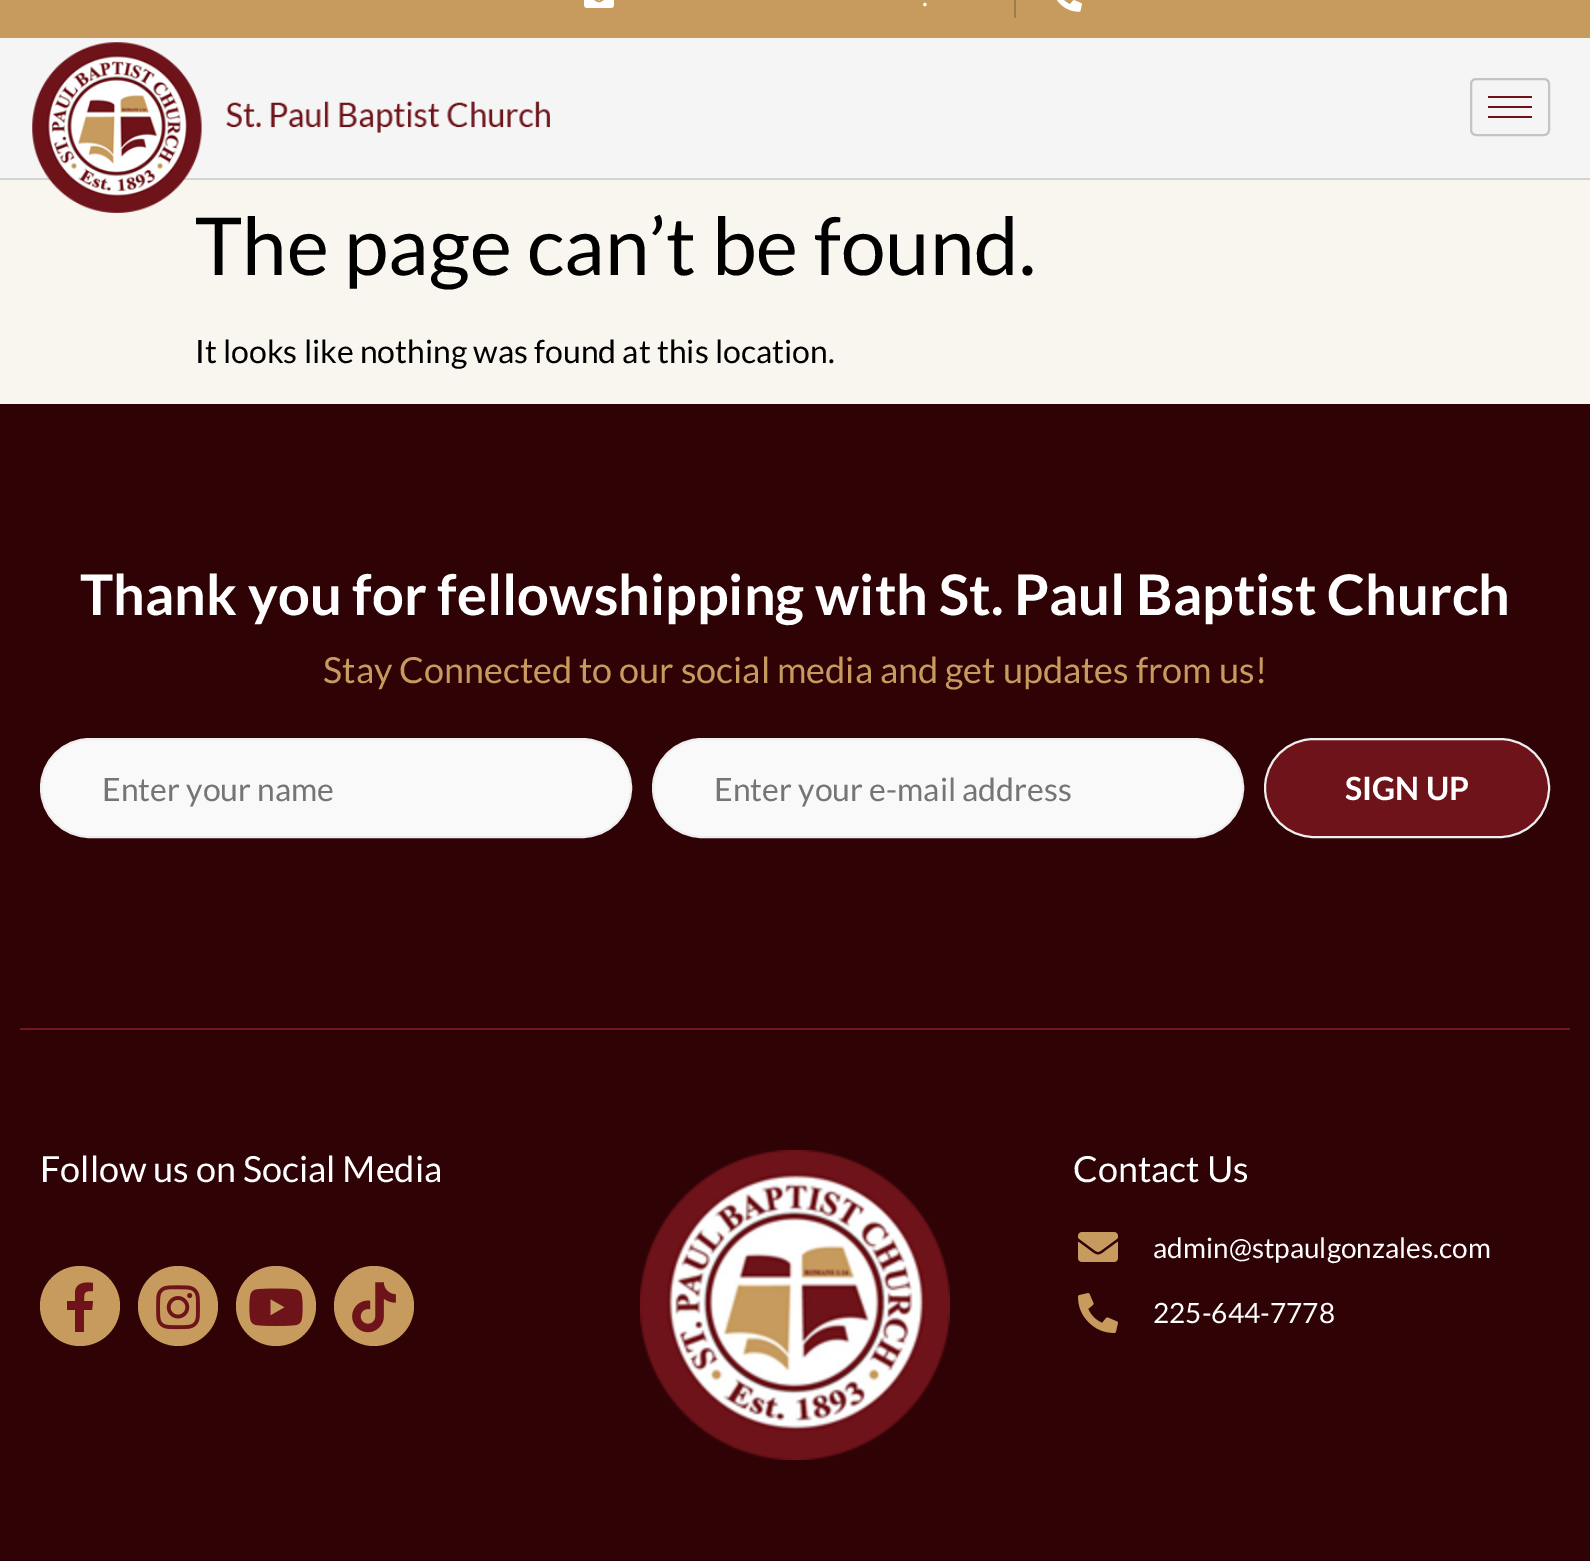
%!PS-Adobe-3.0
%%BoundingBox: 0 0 1590 1561
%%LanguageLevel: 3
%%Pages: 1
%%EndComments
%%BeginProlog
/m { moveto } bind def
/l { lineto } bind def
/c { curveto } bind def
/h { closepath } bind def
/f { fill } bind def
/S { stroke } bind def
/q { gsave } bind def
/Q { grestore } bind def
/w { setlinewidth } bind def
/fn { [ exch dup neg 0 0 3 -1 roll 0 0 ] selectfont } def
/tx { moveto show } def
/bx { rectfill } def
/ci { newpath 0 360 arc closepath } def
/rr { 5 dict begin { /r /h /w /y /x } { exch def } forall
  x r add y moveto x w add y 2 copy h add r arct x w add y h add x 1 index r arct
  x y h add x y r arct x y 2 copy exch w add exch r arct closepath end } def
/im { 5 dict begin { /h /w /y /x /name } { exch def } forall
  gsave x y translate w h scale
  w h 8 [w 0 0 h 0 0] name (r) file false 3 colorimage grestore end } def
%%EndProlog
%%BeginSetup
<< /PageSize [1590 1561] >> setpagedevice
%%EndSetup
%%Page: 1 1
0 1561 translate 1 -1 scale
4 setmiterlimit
0.976 0.961 0.937 setrgbcolor
0 0 1590 1561 bx
0.78 0.608 0.369 setrgbcolor
0 0 1590 38 bx
(image0.raw) 584 0 30 8 im
/Lato-Regular 28 fn
1 setgray
(.) 922 6 tx
0.624 0.486 0.294 setrgbcolor
1014 0 2 18 bx
(image1.raw) 1056 0 26 12 im
0.961 setgray
0 38 1590 140 bx
0.831 setgray
0 178 1590 2 bx
(image2.raw) 32 42 518 171 im
0.769 setgray
2 w
1471 79 78 56 5 rr S
0.431 0.075 0.102 setrgbcolor
1488 96 44 2 bx
1488 106 44 2 bx
1488 116 44 2 bx
/Lato-Regular 80 fn
0 setgray
(The page can’t be found.) 195 275 tx
/Lato-Regular 32 fn
(It looks like nothing was found at this location.) 195 363 tx
0.184 0.008 0.024 setrgbcolor
0 404 1590 1156 bx
0.455 0.086 0.118 setrgbcolor
20 1028 1550 2 bx
/Lato-Bold 56 fn
1 setgray
(Thank you for fellowshipping with St. Paul Baptist Church) 80 615 tx
/Lato-Regular 36 fn
0.78 0.608 0.369 setrgbcolor
(Stay Connected to our social media and get updates from us!) 323 683 tx
0.976 setgray
41 739 590 98 49 rr q f Q
0.933 setgray
S
/Lato-Regular 32 fn
0.459 setgray
(Enter your name) 102 801 tx
0.976 setgray
653 739 590 98 49 rr q f Q
0.933 setgray
S
0.459 setgray
(Enter your e-mail address) 714 801 tx
0.431 0.075 0.102 setrgbcolor
1265 739 284 98 49 rr q f Q
0.933 setgray
S
/Lato-Bold 32 fn
1 setgray
(SIGN UP) 1345 800 tx
/Lato-Regular 36 fn
(Follow us on Social Media) 40 1182 tx
0.78 0.608 0.369 setrgbcolor
80 1306 40 ci f
0.431 0.075 0.102 setrgbcolor
92 1310 m 84 1310 l 84 1332 l 75 1332 l 75 1310 l 67 1310 l 67 1301 l 75 1301 l 75 1292 l 76 1282 86 1282 93 1283 c 93 1291 l 84 1291 84 1292 84 1301 c 93 1301 l h f
0.78 0.608 0.369 setrgbcolor
178 1306 40 ci f
(image3.raw) 156 1285 44 45 im
276 1306 40 ci f
(image4.raw) 249 1288 54 38 im
374 1306 40 ci f
(image5.raw) 352 1282 44 51 im
(image6.raw) 640 1150 310 310 im
1 setgray
(Contact Us) 1073 1182 tx
(image7.raw) 1078 1232 40 30 im
/Lato-Regular 28 fn
(admin@stpaulgonzales.com) 1153 1258 tx
(image8.raw) 1078 1293 40 40 im
(225-644-7778) 1153 1323 tx
0.137 0.004 0.016 setrgbcolor
0 1560 1590 1 bx
showpage
%%EOF
